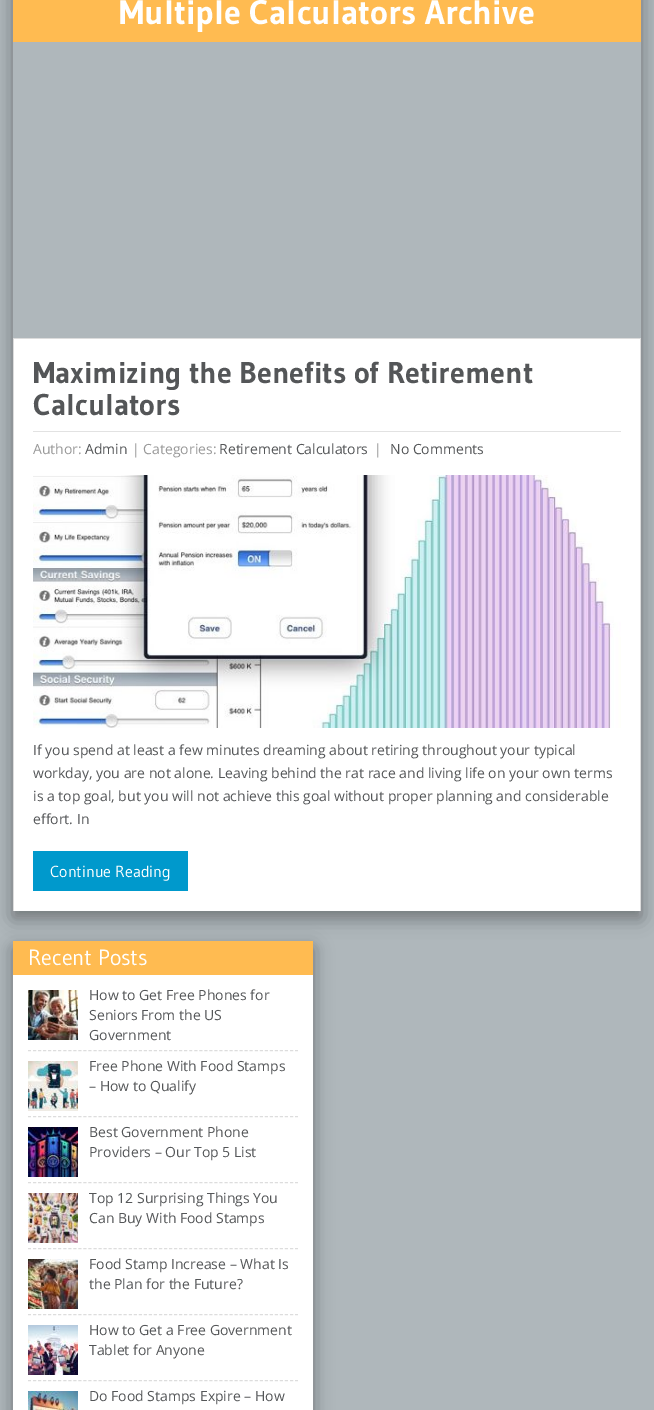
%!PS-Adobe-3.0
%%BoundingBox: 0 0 654 1410
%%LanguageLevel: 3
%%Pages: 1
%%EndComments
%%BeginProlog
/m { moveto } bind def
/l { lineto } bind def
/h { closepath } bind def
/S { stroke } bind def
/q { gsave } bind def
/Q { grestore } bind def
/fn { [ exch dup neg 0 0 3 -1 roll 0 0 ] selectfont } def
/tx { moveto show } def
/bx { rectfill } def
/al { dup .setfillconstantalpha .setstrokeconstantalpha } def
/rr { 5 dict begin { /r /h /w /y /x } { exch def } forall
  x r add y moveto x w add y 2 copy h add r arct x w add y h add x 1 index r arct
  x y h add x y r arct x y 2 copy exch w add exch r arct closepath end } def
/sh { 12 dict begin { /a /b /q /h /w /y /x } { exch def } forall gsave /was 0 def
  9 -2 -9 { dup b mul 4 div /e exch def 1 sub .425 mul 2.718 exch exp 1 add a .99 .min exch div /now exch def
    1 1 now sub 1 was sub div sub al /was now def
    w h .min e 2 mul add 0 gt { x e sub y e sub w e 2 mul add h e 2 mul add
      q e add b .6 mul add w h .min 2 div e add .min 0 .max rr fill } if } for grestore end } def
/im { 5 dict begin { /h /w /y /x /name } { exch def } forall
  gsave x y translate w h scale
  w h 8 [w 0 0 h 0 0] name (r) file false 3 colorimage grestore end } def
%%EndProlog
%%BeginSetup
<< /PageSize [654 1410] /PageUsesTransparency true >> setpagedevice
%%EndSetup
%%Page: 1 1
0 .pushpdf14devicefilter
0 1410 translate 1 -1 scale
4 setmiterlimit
0.686 0.718 0.733 setrgbcolor
0 0 654 1410 bx
q
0 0 m 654 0 l 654 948 l 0 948 l h 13 -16 m 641 -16 l 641 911 l 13 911 l h eoclip newpath
0 setgray
13 -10 628 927 0 10 0.19 sh
Q
q
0 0 m 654 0 l 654 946 l 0 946 l h 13 -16 m 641 -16 l 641 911 l 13 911 l h eoclip newpath
0 setgray
13 -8 628 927 0 8.5 0.2 sh
Q
1 0.733 0.318 setrgbcolor
13 0 628 42 bx
/Gudea-Bold 34 fn
1 setgray
(Multiple Calculators Archive) 119 24 tx
14 339 626 572 bx
0.863 setgray
13 338 628 1 bx
640 338 1 573 bx
13 338 1 573 bx
/Gudea-Bold 30 fn
0.329 0.337 0.345 setrgbcolor
(Maximizing the Benefits of Retirement) 33 383 tx
(Calculators) 33 415 tx
0.886 setgray
33 431 588 1 bx
/OpenSans-Regular 14 fn
0.6 setgray
(Author:) 33 454 tx
0.329 0.337 0.345 setrgbcolor
(Admin) 85 454 tx
0.6 setgray
(| Categories:) 132 454 tx
0.329 0.337 0.345 setrgbcolor
(Retirement Calculators) 219 454 tx
0.6 setgray
(|) 374 454 tx
0.329 0.337 0.345 setrgbcolor
(No Comments) 390 454 tx
(image0.raw) 33 475 588 253 im
(If you spend at least a few minutes dreaming about retiring throughout your typical) 33 755 tx
(workday, you are not alone. Leaving behind the rat race and living life on your own terms) 33 778 tx
(is a top goal, but you will not achieve this goal without proper planning and considerable) 33 801 tx
(effort. In) 33 824 tx
0 0.6 0.8 setrgbcolor
33 851 155 40 bx
/Gudea-Regular 16 fn
1 setgray
(Continue Reading) 50 877 tx
0 setgray
13 947 300 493 0 10 0.19 sh
13 949 300 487 0 8.5 0.2 sh
1 setgray
13 975 300 435 bx
1 0.733 0.318 setrgbcolor
13 941 300 34 bx
/Gudea-Regular 22 fn
1 setgray
(Recent Posts) 28 965 tx
0.867 setgray
[3 2.04] 0 setdash
28 1050.5 m 298 1050.5 l S
(image1.raw) 28 990 50 50 im
/OpenSans-Regular 14 fn
0.329 0.337 0.345 setrgbcolor
(How to Get Free Phones for) 89 1000 tx
(Seniors From the US) 89 1020 tx
(Government) 89 1040 tx
0.867 setgray
28 1116.5 m 298 1116.5 l S
(image2.raw) 28 1061 50 50 im
0.329 0.337 0.345 setrgbcolor
(Free Phone With Food Stamps) 89 1071 tx
(– How to Qualify) 89 1091 tx
0.867 setgray
28 1182.5 m 298 1182.5 l S
(image3.raw) 28 1127 50 50 im
0.329 0.337 0.345 setrgbcolor
(Best Government Phone) 89 1137 tx
(Providers – Our Top 5 List) 89 1157 tx
0.867 setgray
28 1248.5 m 298 1248.5 l S
(image4.raw) 28 1193 50 50 im
0.329 0.337 0.345 setrgbcolor
(Top 12 Surprising Things You) 89 1203 tx
(Can Buy With Food Stamps) 89 1223 tx
0.867 setgray
28 1314.5 m 298 1314.5 l S
(image5.raw) 28 1259 50 50 im
0.329 0.337 0.345 setrgbcolor
(Food Stamp Increase – What Is) 89 1269 tx
(the Plan for the Future?) 89 1289 tx
0.867 setgray
28 1380.5 m 298 1380.5 l S
(image6.raw) 28 1325 50 50 im
0.329 0.337 0.345 setrgbcolor
(How to Get a Free Government) 89 1335 tx
(Tablet for Anyone) 89 1355 tx
(image7.raw) 28 1391 50 19 im
(Do Food Stamps Expire – How) 89 1401 tx
.poppdf14devicefilter showpage
%%EOF
